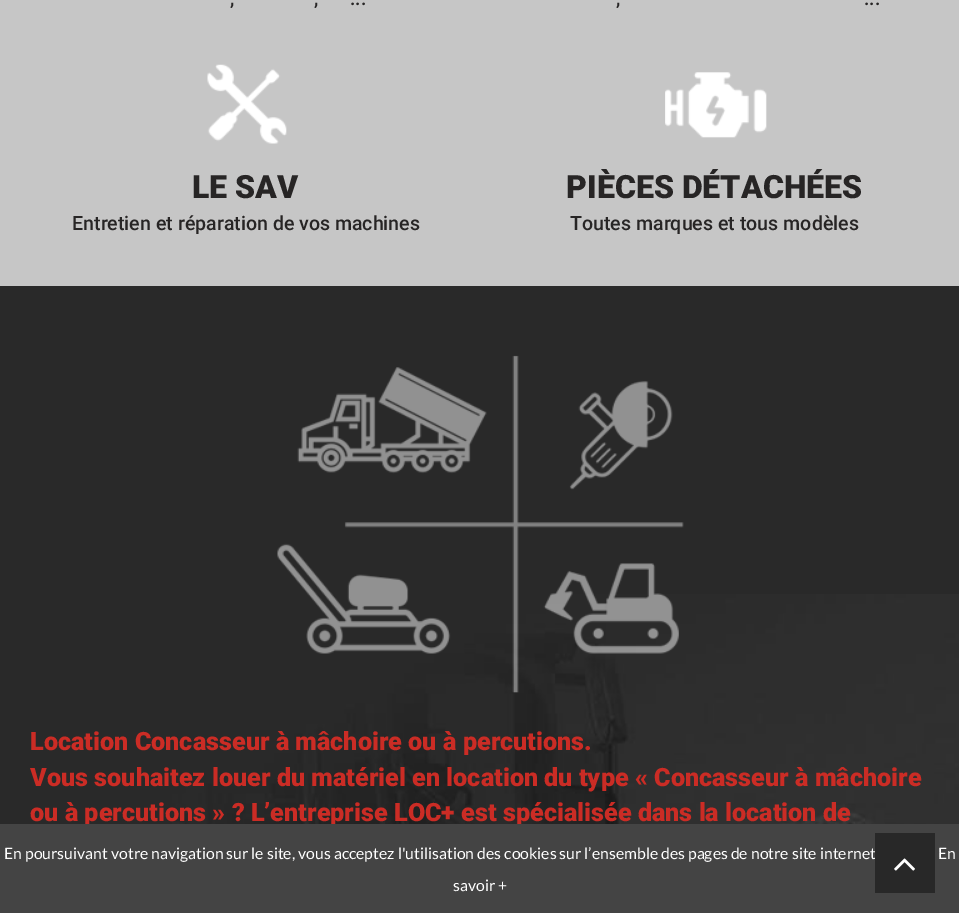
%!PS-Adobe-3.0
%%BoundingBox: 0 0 959 913
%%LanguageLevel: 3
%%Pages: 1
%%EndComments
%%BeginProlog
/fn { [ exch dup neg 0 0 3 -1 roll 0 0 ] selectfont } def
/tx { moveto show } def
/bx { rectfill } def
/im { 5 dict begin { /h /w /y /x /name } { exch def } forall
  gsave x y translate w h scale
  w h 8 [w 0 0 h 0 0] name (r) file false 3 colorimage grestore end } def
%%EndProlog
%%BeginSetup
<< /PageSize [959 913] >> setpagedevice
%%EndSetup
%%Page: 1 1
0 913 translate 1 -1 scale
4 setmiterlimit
0.776 setgray
0 0 959 913 bx
/Roboto-Medium 19.6 fn
0.153 0.145 0.145 setrgbcolor
(,) 230 5 tx
(,) 314 5 tx
(...) 350 5 tx
(,) 616 5 tx
(...) 864 5 tx
(image0.raw) 207 64 80 80 im
/Roboto-Black 32.1 fn
(LE SAV) 192 198 tx
/Roboto-Medium 19.6 fn
(Entretien et réparation de vos machines) 72 230 tx
(image1.raw) 665 72 102 66 im
/Roboto-Black 32.1 fn
(PIÈCES DÉTACHÉES) 566 198 tx
/Roboto-Medium 19.6 fn
(Toutes marques et tous modèles) 570 230 tx
0.161 setgray
0 286 959 538 bx
(image2.raw) 172 594 787 230 im
(image3.raw) 277 355 407 338 im
/Roboto-Black 25.2 fn
0.796 0.173 0.145 setrgbcolor
(Location Concasseur à mâchoire ou à percutions.) 30 750 tx
(Vous souhaitez louer du matériel en location du type « Concasseur à mâchoire) 30 786 tx
(ou à percutions » ? L’entreprise LOC+ est spécialisée dans la location de) 30 821 tx
0.267 setgray
0 824 959 89 bx
/Lato-Regular 15.75 fn
1 setgray
(En poursuivant votre navigation sur le site, vous acceptez l'utilisation des cookies sur l’ensemble des pages de notre site internet) 4 859 tx
(En) 938 859 tx
(savoir +) 453 891 tx
0.157 setgray
875 833 60 60 bx
(image4.raw) 894 858 21 13 im
showpage
%%EOF
